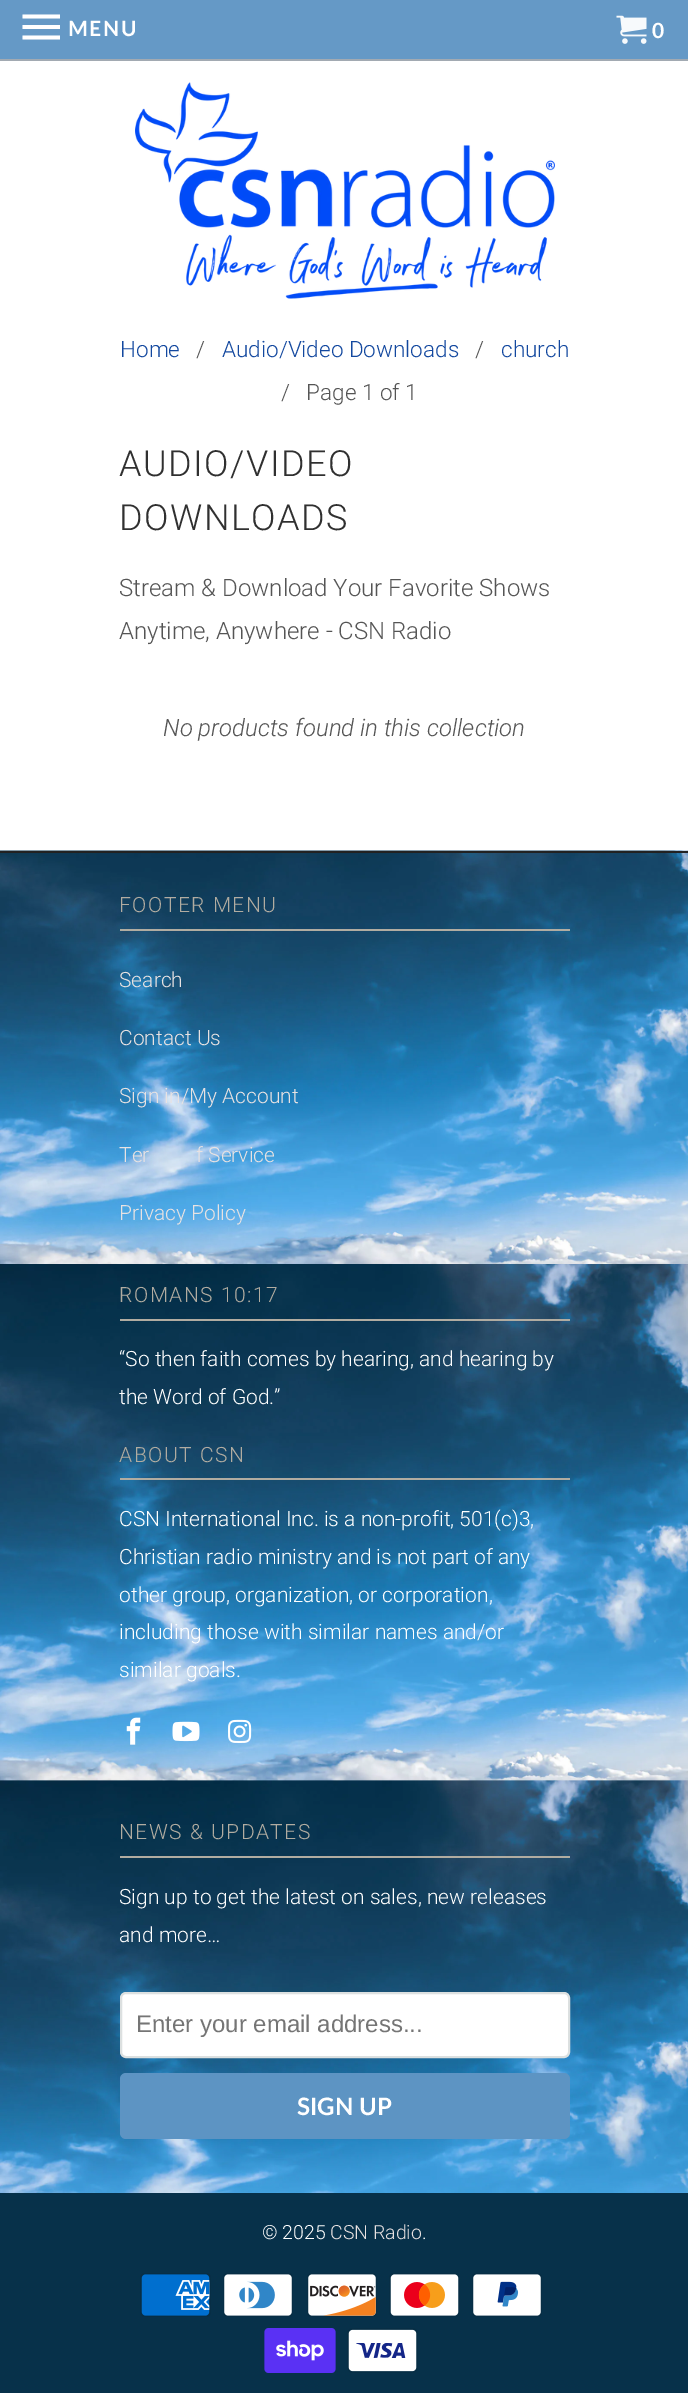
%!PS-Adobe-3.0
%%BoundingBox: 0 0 688 2407
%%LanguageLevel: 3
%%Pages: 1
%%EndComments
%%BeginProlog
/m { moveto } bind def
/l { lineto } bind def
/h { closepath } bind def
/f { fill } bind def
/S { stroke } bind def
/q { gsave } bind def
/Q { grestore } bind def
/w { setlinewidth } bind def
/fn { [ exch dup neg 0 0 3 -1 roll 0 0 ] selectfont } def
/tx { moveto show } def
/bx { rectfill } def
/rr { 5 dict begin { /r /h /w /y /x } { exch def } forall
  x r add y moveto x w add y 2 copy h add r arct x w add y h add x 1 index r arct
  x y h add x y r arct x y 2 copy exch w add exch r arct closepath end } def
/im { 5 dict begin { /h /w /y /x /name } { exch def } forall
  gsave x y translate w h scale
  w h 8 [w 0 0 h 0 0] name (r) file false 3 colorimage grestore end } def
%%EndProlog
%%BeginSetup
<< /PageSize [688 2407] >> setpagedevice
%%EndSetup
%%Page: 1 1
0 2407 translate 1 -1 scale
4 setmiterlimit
1 setgray
0 0 688 2407 bx
0.396 0.6 0.776 setrgbcolor
0 0 688 59 bx
0.635 0.667 0.698 setrgbcolor
0 59 688 2 bx
1 setgray
22.5 39.5 m 60 39.5 l 60 35.5 l 22.5 35.5 l h 22.5 29 m 60 29 l 60 25 l 22.5 25 l h 22.5 14.5 m 22.5 18.5 l 60 18.5 l 60 14.5 l h f
/Lato-Bold 21 fn
68 36 m 1.5 0 (MENU) ashow
(image0.raw) 616 15 31 29 im
652 38 m 1.5 0 (0) ashow
(image1.raw) 135 82 420 217 im
/Roboto-Light 22.5 fn
0.075 0.282 0.624 setrgbcolor
(Home) 120 357 tx
0.333 setgray
(/) 196 357 tx
0.075 0.282 0.624 setrgbcolor
(Audio/Video Downloads) 222 357 tx
0.333 setgray
(/) 475 357 tx
0.075 0.282 0.624 setrgbcolor
(church) 501 357 tx
0.333 setgray
(/   Page 1 of 1) 281 400 tx
/Roboto-Light 36 fn
0.188 setgray
119 476 m 1.5 0 (AUDIO/VIDEO) ashow
119 530 m 1.5 0 (DOWNLOADS) ashow
/Roboto-Light 24 fn
0.333 setgray
(Stream & Download Your Favorite Shows) 119 596 tx
(Anytime, Anywhere - CSN Radio) 119 639 tx
/Roboto-LightItalic 24 fn
(No products found in this collection) 163 736 tx
(image2.raw) 0 850 688 1343 im
0.133 setgray
0 851 688 2 bx
0.694 0.675 0.631 setrgbcolor
120 929 450 2 bx
/Roboto-Light 21 fn
119 912 m 1.5 0 (FOOTER MENU) ashow
0.91 0.886 0.886 setrgbcolor
(Search) 119 987 tx
(Contact Us) 119 1045 tx
(Sign in/My Account) 119 1103 tx
(Ter) 119 1162 tx
(f Service) 196 1162 tx
(Privacy Policy) 119 1220 tx
0.694 0.675 0.631 setrgbcolor
120 1319 450 2 bx
119 1302 m 1.5 0 (ROMANS 10:17) ashow
1 setgray
(“So then faith comes by hearing, and hearing by) 119 1366 tx
(the Word of God.”) 119 1404 tx
0.694 0.675 0.631 setrgbcolor
120 1478 450 2 bx
119 1462 m 1.5 0 (ABOUT CSN) ashow
1 setgray
(CSN International Inc. is a non-profit, 501\(c\)3,) 119 1526 tx
(Christian radio ministry and is not part of any) 119 1564 tx
(other group, organization, or corporation,) 119 1602 tx
(including those with similar names and/or) 119 1639 tx
(similar goals.) 119 1677 tx
(image3.raw) 126 1717 15 28 im
(image4.raw) 172 1721 28 21 im
(image5.raw) 228 1719 24 24 im
0.694 0.675 0.631 setrgbcolor
120 1856 450 2 bx
119 1839 m 1.5 0 (NEWS & UPDATES) ashow
1 setgray
(Sign up to get the latest on sales, new releases) 119 1904 tx
(and more…) 119 1942 tx
121 1993 448 64 5 rr q f Q
0.863 0.878 0.878 setrgbcolor
2 w
S
/LiberationSans-Regular 24 fn
0.459 setgray
(Enter your email address...) 136 2032 tx
0.365 0.58 0.765 setrgbcolor
120 2073 450 66 6 rr f
/Lato-Bold 24 fn
1 setgray
(SIGN UP) 297 2115 tx
0.027 0.192 0.29 setrgbcolor
0 2193 688 200 bx
/Roboto-Light 19.5 fn
1 setgray
(© 2025) 262 2239 tx
0.91 0.886 0.886 setrgbcolor
(CSN Radio) 330 2239 tx
1 setgray
(.) 422 2239 tx
(image6.raw) 140 2273 71 44 im
(image7.raw) 223 2273 70 44 im
(image8.raw) 307 2273 70 44 im
(image9.raw) 389 2273 71 44 im
(image10.raw) 472 2273 70 44 im
(image11.raw) 264 2328 72 45 im
(image12.raw) 347 2328 71 45 im
showpage
%%EOF
